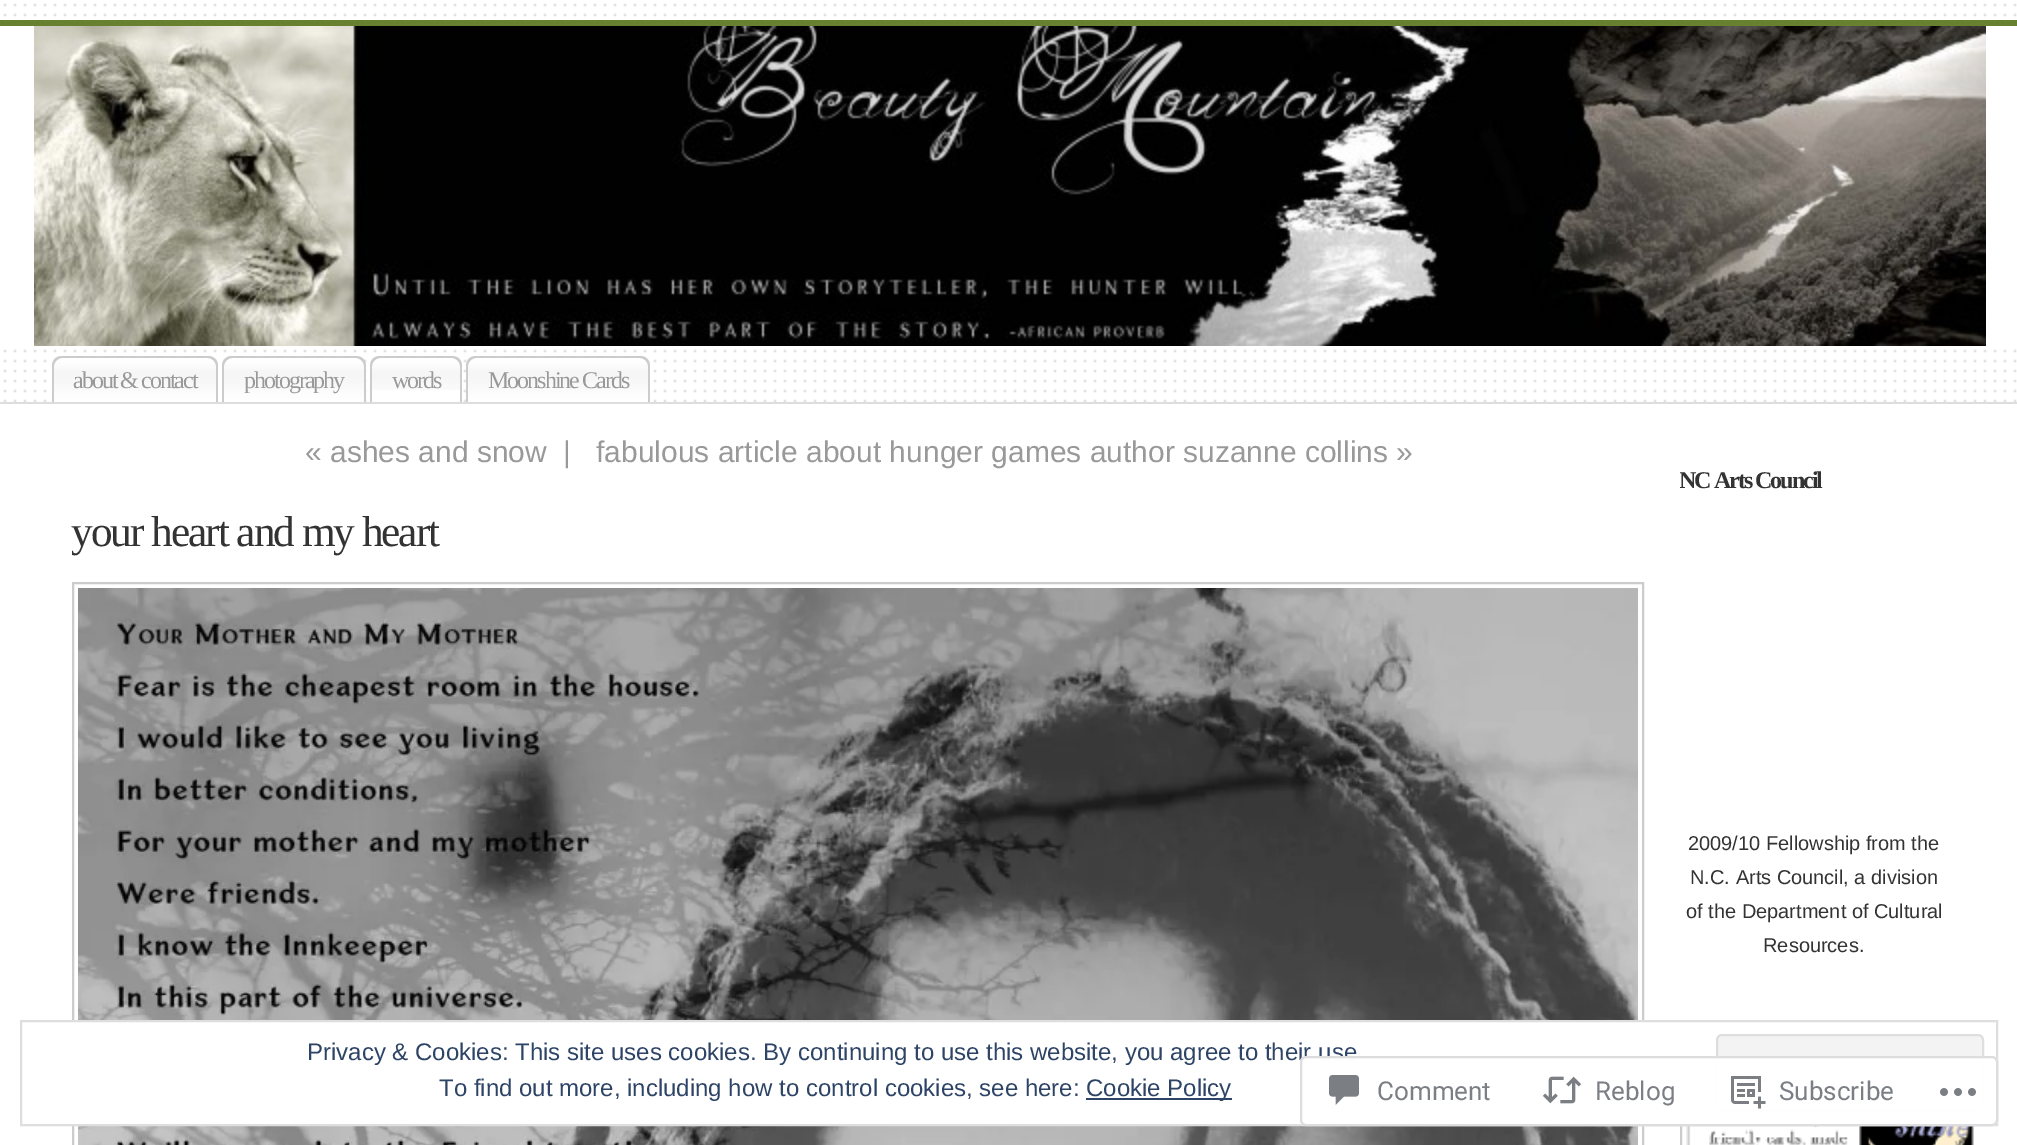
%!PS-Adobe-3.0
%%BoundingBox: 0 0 2017 1145
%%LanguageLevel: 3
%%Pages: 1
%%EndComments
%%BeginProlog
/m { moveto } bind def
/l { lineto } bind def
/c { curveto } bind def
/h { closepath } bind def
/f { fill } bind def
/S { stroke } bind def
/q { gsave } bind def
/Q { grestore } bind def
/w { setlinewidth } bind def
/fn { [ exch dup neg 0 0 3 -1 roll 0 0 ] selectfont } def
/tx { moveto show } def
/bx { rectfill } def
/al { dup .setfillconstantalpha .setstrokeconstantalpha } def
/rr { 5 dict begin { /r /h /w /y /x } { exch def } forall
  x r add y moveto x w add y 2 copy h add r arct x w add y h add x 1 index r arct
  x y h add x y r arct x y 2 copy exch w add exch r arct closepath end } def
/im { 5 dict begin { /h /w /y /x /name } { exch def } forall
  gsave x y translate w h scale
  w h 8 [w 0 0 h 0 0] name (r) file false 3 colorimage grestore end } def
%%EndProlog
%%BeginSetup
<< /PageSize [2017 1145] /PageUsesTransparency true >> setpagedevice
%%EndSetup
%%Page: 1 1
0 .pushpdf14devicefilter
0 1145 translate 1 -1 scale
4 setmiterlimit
1 setgray
0 0 2017 1145 bx
(image0.raw) 3 3 2014 14 im
0.404 0.506 0.192 setrgbcolor
0 20 2017 6 bx
(image1.raw) 34 26 1952 320 im
(image2.raw) 3 349 2014 53 im
0.867 setgray
0 402 2017 2 bx
1 setgray
62 358 m 208 358 l 212.5 358 216 361.5 216 366 c 216 402 l 54 402 l 54 366 l 54 361.5 57.5 358 62 358 c h f
(image3.raw) 52 359 166 43 im
0.8 setgray
62 356 m 208 356 l 214 356 218 360 218 366 c 218 402 l 52 402 l 52 366 l 52 360 56 356 62 356 c h 62 358 m 208 358 l 212 358 216 362 216 366 c 216 402 l 54 402 l 54 366 l 54 362 58 358 62 358 c h eofill
/LiberationSerif-Regular 24 fn
0.6 setgray
73 388 m -2 0 (about & contact) ashow
1 setgray
232 358 m 356 358 l 360.5 358 364 361.5 364 366 c 364 402 l 224 402 l 224 366 l 224 361.5 227.5 358 232 358 c h f
(image4.raw) 222 359 144 43 im
0.8 setgray
232 356 m 356 356 l 362 356 366 360 366 366 c 366 402 l 222 402 l 222 366 l 222 360 226 356 232 356 c h 232 358 m 356 358 l 360 358 364 362 364 366 c 364 402 l 224 402 l 224 366 l 224 362 228 358 232 358 c h eofill
0.6 setgray
244 388 m -2 0 (photography) ashow
1 setgray
380 358 m 452 358 l 456.5 358 460 361.5 460 366 c 460 402 l 372 402 l 372 366 l 372 361.5 375.5 358 380 358 c h f
(image5.raw) 370 359 92 31 im
0.8 setgray
380 356 m 452 356 l 458 356 462 360 462 366 c 462 402 l 370 402 l 370 366 l 370 360 374 356 380 356 c h 380 358 m 452 358 l 456 358 460 362 460 366 c 460 402 l 372 402 l 372 366 l 372 362 376 358 380 358 c h eofill
0.6 setgray
392 388 m -2 0 (words) ashow
1 setgray
476 358 m 640 358 l 644.5 358 648 361.5 648 366 c 648 402 l 468 402 l 468 366 l 468 361.5 471.5 358 476 358 c h f
(image6.raw) 466 359 184 43 im
0.8 setgray
476 356 m 640 356 l 646 356 650 360 650 366 c 650 402 l 466 402 l 466 366 l 466 360 470 356 476 356 c h 476 358 m 640 358 l 644 358 648 362 648 366 c 648 402 l 468 402 l 468 366 l 468 362 472 358 476 358 c h eofill
0.6 setgray
488 388 m -2 0 (Moonshine Cards) ashow
/LiberationSans-Regular 30 fn
(« ashes and snow) 305 462 tx
(|) 563 462 tx
(fabulous article about hunger games author suzanne collins ») 596 462 tx
/LiberationSerif-Regular 43.25 fn
0.2 setgray
71 546 m -2 0 (your heart and my heart) ashow
0.8 setgray
2 w
73 583 1570 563 rectstroke
(image7.raw) 78 588 1560 557 im
q
1680 456 300 522 rectclip
/LiberationSerif-Bold 24 fn
0.2 setgray
1679 488 m -2 0 (NC Arts Council) ashow
Q
/LiberationSans-Regular 20 fn
0.2 setgray
(2009/10 Fellowship from the) 1688 850 tx
(N.C. Arts Council, a division) 1690 884 tx
(of the Department of Cultural) 1686 918 tx
(Resources.) 1763 952 tx
q
1680 1008 300 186 rectclip
0.8 setgray
1681 1049 310 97 rectstroke
Q
(image8.raw) 1686 1126 294 19 im
1 setgray
72 1022 1908 102 bx
0.871 setgray
21 1021 1976 104 rectstroke
/LiberationSans-Regular 24 fn
0.18 0.267 0.404 setrgbcolor
(Privacy & Cookies: This site uses cookies. By continuing to use this website, you agree to their use) 307 1060 tx
0.953 setgray
1717 1035 266 76 5 rr q f Q
0.871 setgray
S
0.18 0.267 0.404 setrgbcolor
(To find out more, including how to control cookies, see here:) 439 1096 tx
1086 1098 146 2 bx
(Cookie Policy) 1086 1096 tx
0.98 al
1 setgray
1300 1056 698 70 6 rr f
0.863 0.863 0.871 setrgbcolor
1301 1057 696 68 5 rr S
1 al
(image9.raw) 1329 1075 30 30 im
/Roboto-Regular 26 fn
0.482 0.498 0.522 setrgbcolor
(Comment) 1377 1100 tx
(image10.raw) 1542 1076 40 28 im
(Reblog) 1595 1100 tx
(image11.raw) 1731 1076 35 33 im
(Subscribe) 1779 1100 tx
(image12.raw) 1940 1088 36 8 im
.poppdf14devicefilter showpage
%%EOF
